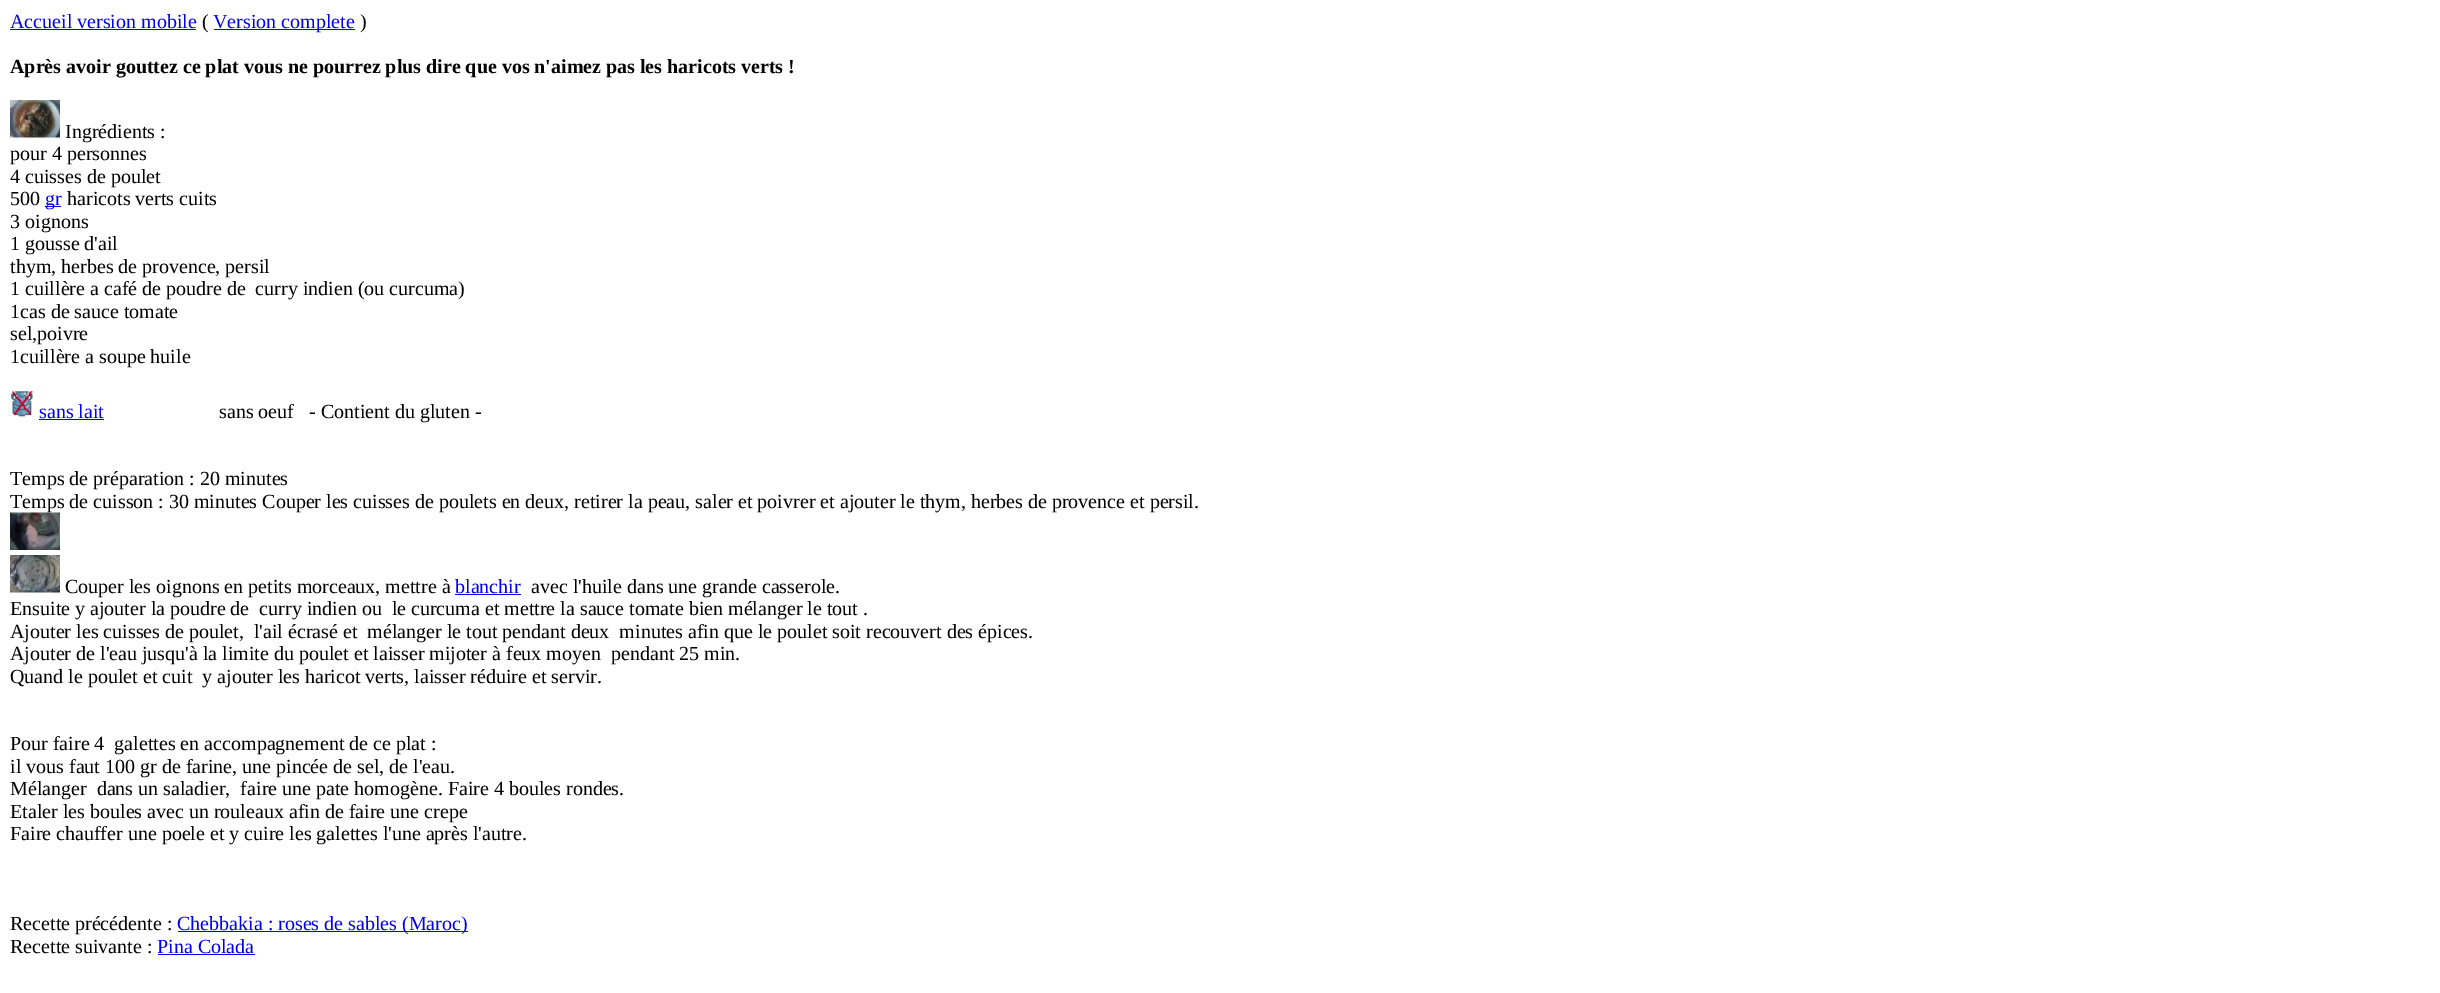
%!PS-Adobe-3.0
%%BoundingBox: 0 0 2440 993
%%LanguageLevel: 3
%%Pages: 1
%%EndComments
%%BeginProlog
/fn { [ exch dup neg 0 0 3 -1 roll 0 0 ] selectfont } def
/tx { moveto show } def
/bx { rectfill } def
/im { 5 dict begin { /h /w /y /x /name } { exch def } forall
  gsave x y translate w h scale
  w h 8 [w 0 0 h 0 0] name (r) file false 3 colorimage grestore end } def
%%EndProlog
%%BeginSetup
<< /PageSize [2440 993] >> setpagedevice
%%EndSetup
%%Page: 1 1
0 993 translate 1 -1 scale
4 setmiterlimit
1 setgray
0 0 2440 993 bx
/LiberationSerif-Regular 20 fn
0 0 0.933 setrgbcolor
(Accueil version mobile) 10 28 tx
10 29 186 1 bx
0 setgray
(\() 202 28 tx
0 0 0.933 setrgbcolor
214 29 141 1 bx
(Version complete) 213 28 tx
0 setgray
(\)) 360 28 tx
/LiberationSerif-Bold 20 fn
(Après avoir gouttez ce plat vous ne pourrez plus dire que vos n'aimez pas les haricots verts !) 10 73 tx
(image0.raw) 10 100 50 38 im
/LiberationSerif-Regular 20 fn
(Ingrédients :) 65 138 tx
(pour 4 personnes) 10 160 tx
(4 cuisses de poulet) 10 183 tx
(500) 10 205 tx
0 0 0.933 setrgbcolor
45 206 16 1 bx
(gr) 45 205 tx
0 setgray
(haricots verts cuits) 67 205 tx
(3 oignons) 10 228 tx
(1 gousse d'ail) 10 250 tx
(thym, herbes de provence, persil) 10 273 tx
(1 cuillère a café de poudre de  curry indien \(ou curcuma\)) 10 295 tx
(1cas de sauce tomate) 10 318 tx
(sel,poivre) 10 340 tx
(1cuillère a soupe huile) 10 363 tx
(image1.raw) 11 391 22 26 im
0 0 0.933 setrgbcolor
(sans lait) 39 418 tx
39 419 65 1 bx
0 setgray
(sans oeuf) 219 418 tx
(- Contient du gluten -) 309 418 tx
(Temps de préparation : 20 minutes) 10 485 tx
(Temps de cuisson : 30 minutes Couper les cuisses de poulets en deux, retirer la peau, saler et poivrer et ajouter le thym, herbes de provence et persil.) 10 508 tx
(image2.raw) 10 512 50 38 im
(image3.raw) 10 555 50 38 im
(Couper les oignons en petits morceaux, mettre à) 65 593 tx
0 0 0.933 setrgbcolor
(blanchir) 455 593 tx
455 594 66 1 bx
0 setgray
(avec l'huile dans une grande casserole.) 531 593 tx
(Ensuite y ajouter la poudre de  curry indien ou  le curcuma et mettre la sauce tomate bien mélanger le tout .) 10 615 tx
(Ajouter les cuisses de poulet,  l'ail écrasé et  mélanger le tout pendant deux  minutes afin que le poulet soit recouvert des épices.) 10 638 tx
(Ajouter de l'eau jusqu'à la limite du poulet et laisser mijoter à feux moyen  pendant 25 min.) 10 660 tx
(Quand le poulet et cuit  y ajouter les haricot verts, laisser réduire et servir.) 10 683 tx
(Pour faire 4  galettes en accompagnement de ce plat :) 10 750 tx
(il vous faut 100 gr de farine, une pincée de sel, de l'eau.) 10 773 tx
(Mélanger  dans un saladier,  faire une pate homogène. Faire 4 boules rondes.) 10 795 tx
(Etaler les boules avec un rouleaux afin de faire une crepe) 10 818 tx
(Faire chauffer une poele et y cuire les galettes l'une après l'autre.) 10 840 tx
(Recette précédente :) 10 930 tx
0 0 0.933 setrgbcolor
178 931 290 1 bx
(Chebbakia : roses de sables \(Maroc\)) 177 930 tx
0 setgray
(Recette suivante :) 10 953 tx
0 0 0.933 setrgbcolor
(Pina Colada) 157 953 tx
158 954 97 1 bx
showpage
%%EOF
